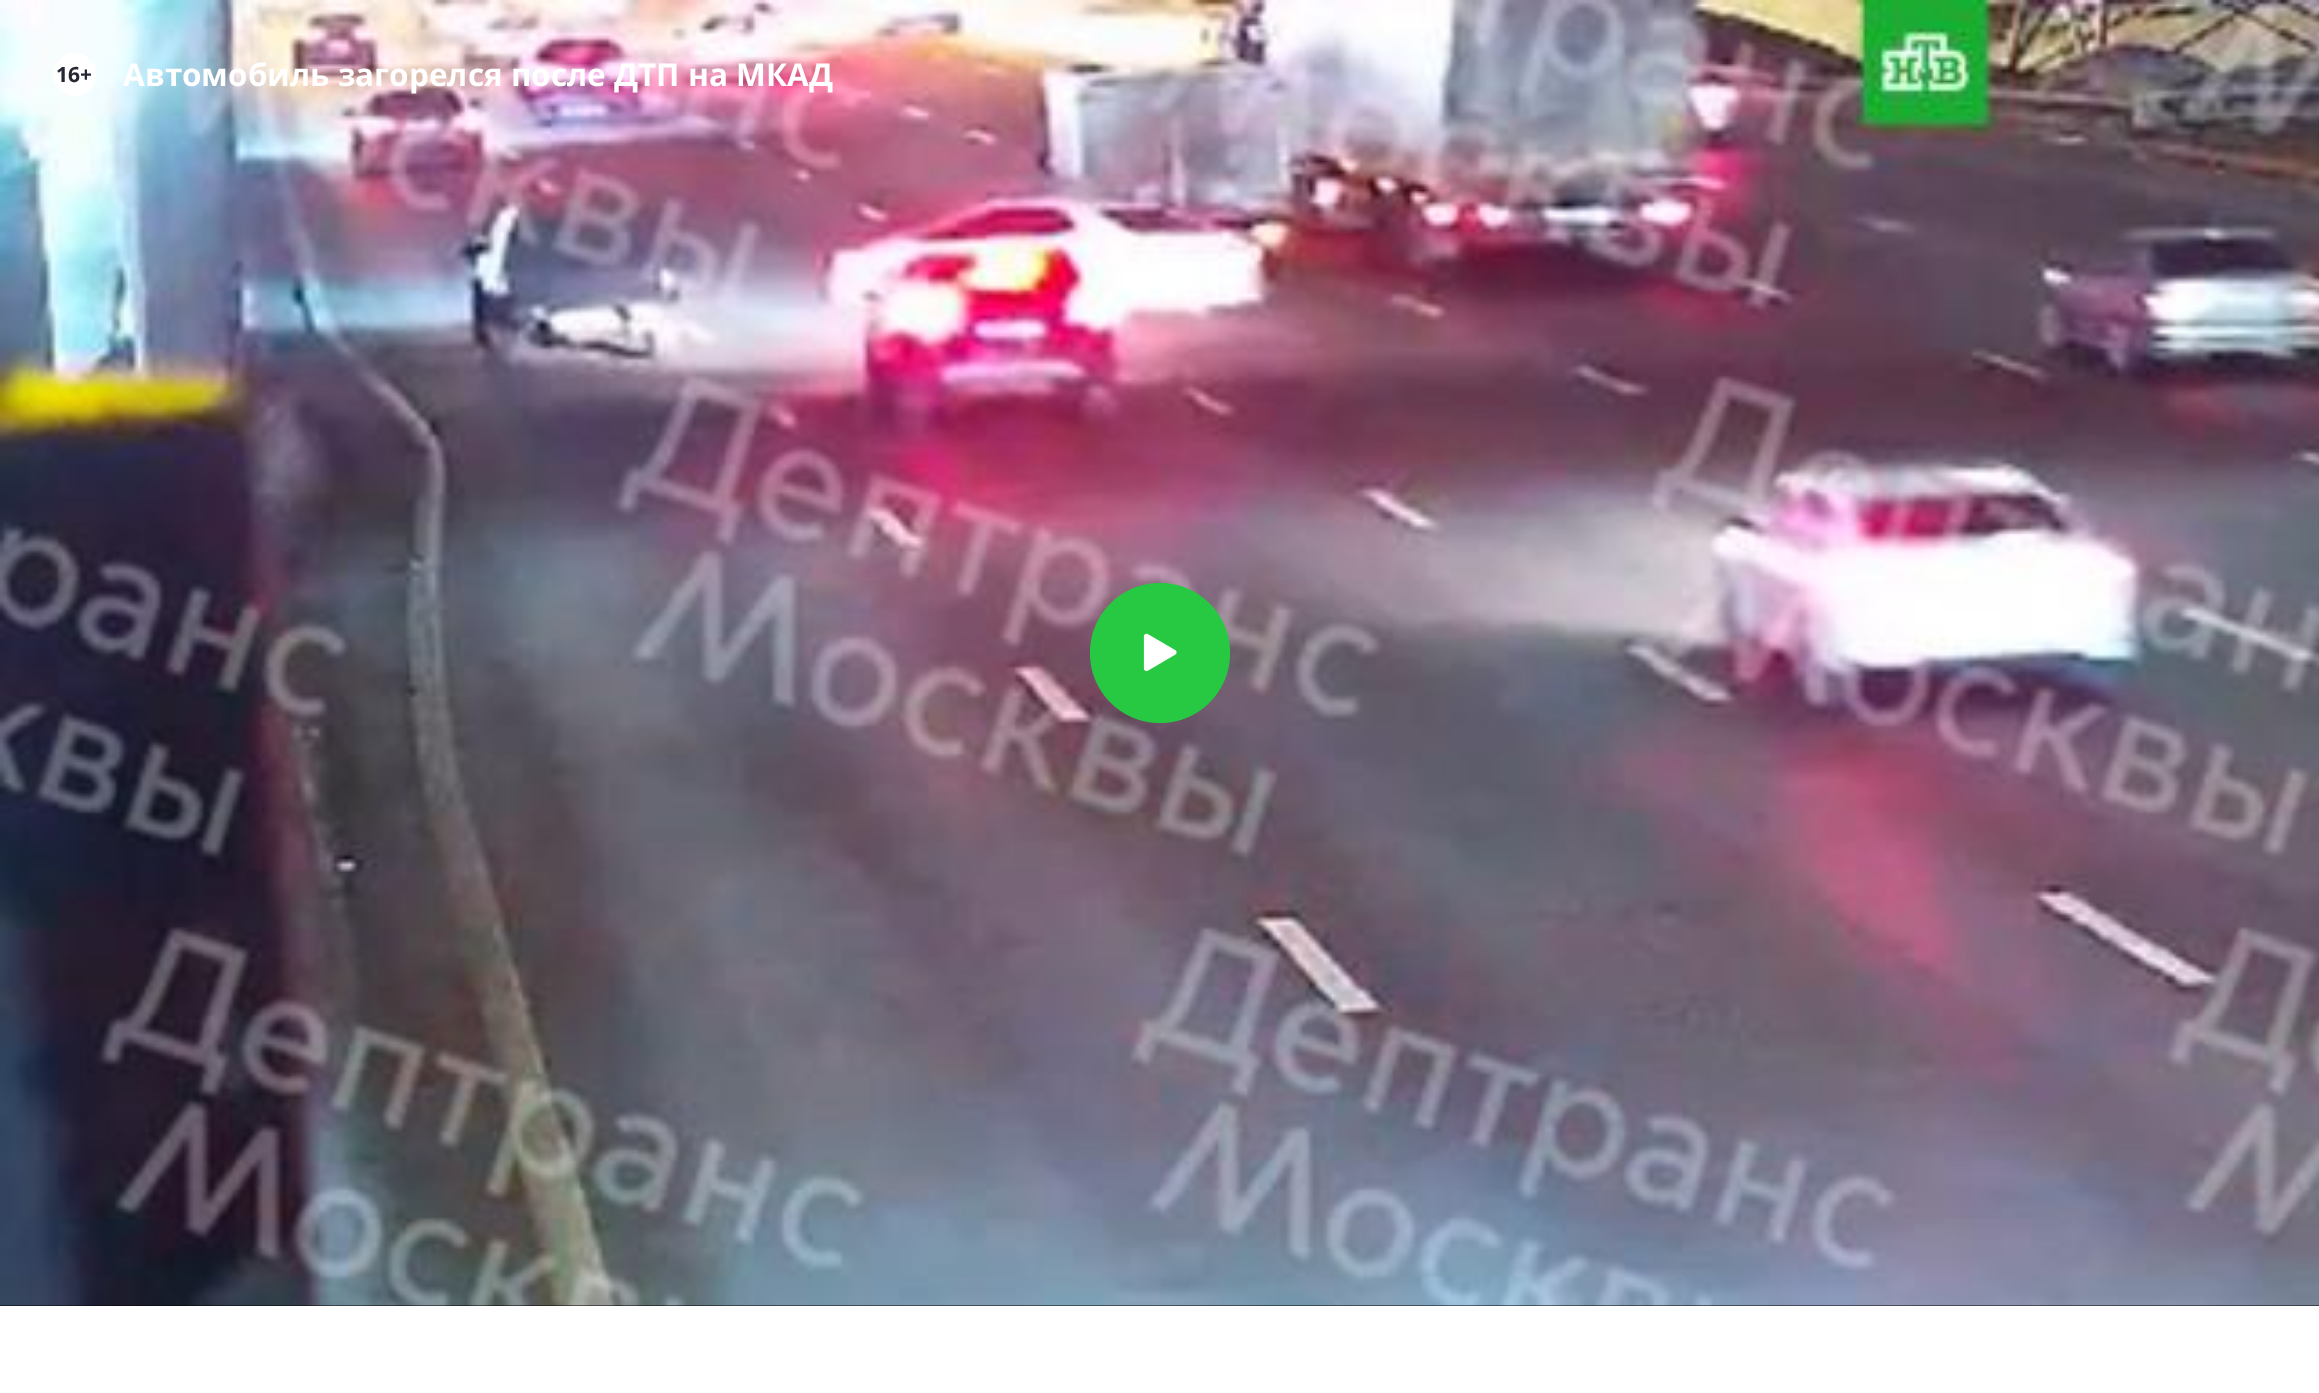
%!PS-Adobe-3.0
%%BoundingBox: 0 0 2319 1393
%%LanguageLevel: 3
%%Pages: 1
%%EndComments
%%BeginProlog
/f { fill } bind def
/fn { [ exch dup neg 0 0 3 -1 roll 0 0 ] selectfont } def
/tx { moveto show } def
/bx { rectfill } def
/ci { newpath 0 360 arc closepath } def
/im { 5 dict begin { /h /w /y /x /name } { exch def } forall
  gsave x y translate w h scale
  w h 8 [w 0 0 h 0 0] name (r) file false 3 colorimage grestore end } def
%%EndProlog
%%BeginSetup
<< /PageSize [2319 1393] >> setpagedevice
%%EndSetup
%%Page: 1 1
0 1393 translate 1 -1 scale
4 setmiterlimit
1 setgray
0 0 2319 1393 bx
0 setgray
0 1305 2319 1 bx
(image0.raw) 0 0 2319 1306 im
1 setgray
74.5 74.5 21.5 ci f
/OpenSans-Bold 21 fn
0.145 0.157 0.196 setrgbcolor
(16+) 56 82 tx
/OpenSans-Bold 31.5 fn
1 setgray
(Автомобиль загорелся после ДТП на МКАД) 123 86 tx
0.153 0.788 0.259 setrgbcolor
1160 653 70 ci f
(image1.raw) 1143 633 34 39 im
showpage
%%EOF
